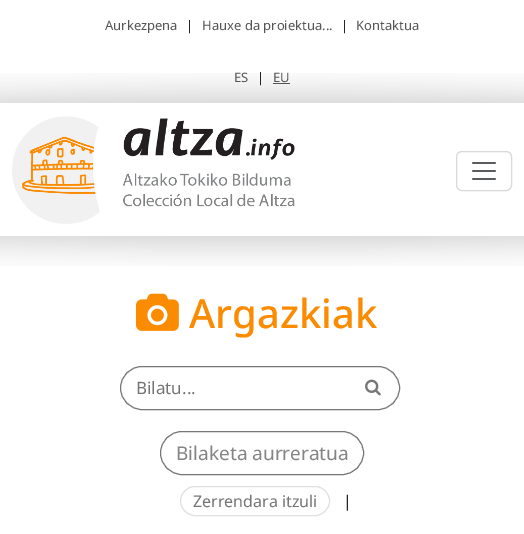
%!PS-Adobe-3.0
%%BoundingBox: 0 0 524 534
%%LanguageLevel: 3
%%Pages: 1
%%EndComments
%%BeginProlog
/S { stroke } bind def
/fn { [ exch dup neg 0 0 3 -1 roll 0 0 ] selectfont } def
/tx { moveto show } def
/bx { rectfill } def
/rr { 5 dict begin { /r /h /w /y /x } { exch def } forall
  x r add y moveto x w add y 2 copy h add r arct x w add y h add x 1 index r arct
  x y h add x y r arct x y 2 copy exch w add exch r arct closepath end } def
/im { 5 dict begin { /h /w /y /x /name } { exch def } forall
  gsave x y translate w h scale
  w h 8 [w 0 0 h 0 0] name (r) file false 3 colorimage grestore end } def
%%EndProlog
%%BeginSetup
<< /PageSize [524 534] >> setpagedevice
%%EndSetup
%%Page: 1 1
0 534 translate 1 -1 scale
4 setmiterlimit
1 setgray
0 0 524 534 bx
(image0.raw) 0 73 524 30 im
/NotoSans-Regular 13 fn
0.333 setgray
(Aurkezpena) 105 30 tx
0.129 0.145 0.161 setrgbcolor
(|) 186 30 tx
0.333 setgray
(Hauxe da proiektua...) 202 30 tx
0.129 0.145 0.161 setrgbcolor
(|) 341 30 tx
0.333 setgray
(Kontaktua) 356 30 tx
(ES) 234 82 tx
0.129 0.145 0.161 setrgbcolor
(|) 257 82 tx
0.333 setgray
(EU) 273 82 tx
273 83 17 1 bx
(image1.raw) 0 236 524 30 im
(image2.raw) 12 116 283 108 im
0.851 setgray
456.5 151.5 55 39 5.5 rr S
(image3.raw) 472 162 24 18 im
(image4.raw) 136 293 43 38 im
/NotoSans-Medium 40 fn
0.984 0.545 0.004 setrgbcolor
(Argazkiak) 189 328 tx
0.467 setgray
120.5 366.5 279 43 21.5 rr S
/NotoSans-Regular 17 fn
0.459 setgray
(Bilatu...) 136 394 tx
(image5.raw) 365 379 16 17 im
0.467 setgray
160.5 431.5 203 43 21.5 rr S
/NotoSans-Regular 19 fn
0.522 setgray
(Bilaketa aurreratua) 176 460 tx
0.878 setgray
180.5 486.5 149 29 14.5 rr S
/NotoSans-Regular 16 fn
0.459 setgray
(Zerrendara itzuli) 193 507 tx
0.129 0.145 0.161 setrgbcolor
(|) 343 507 tx
showpage
%%EOF
